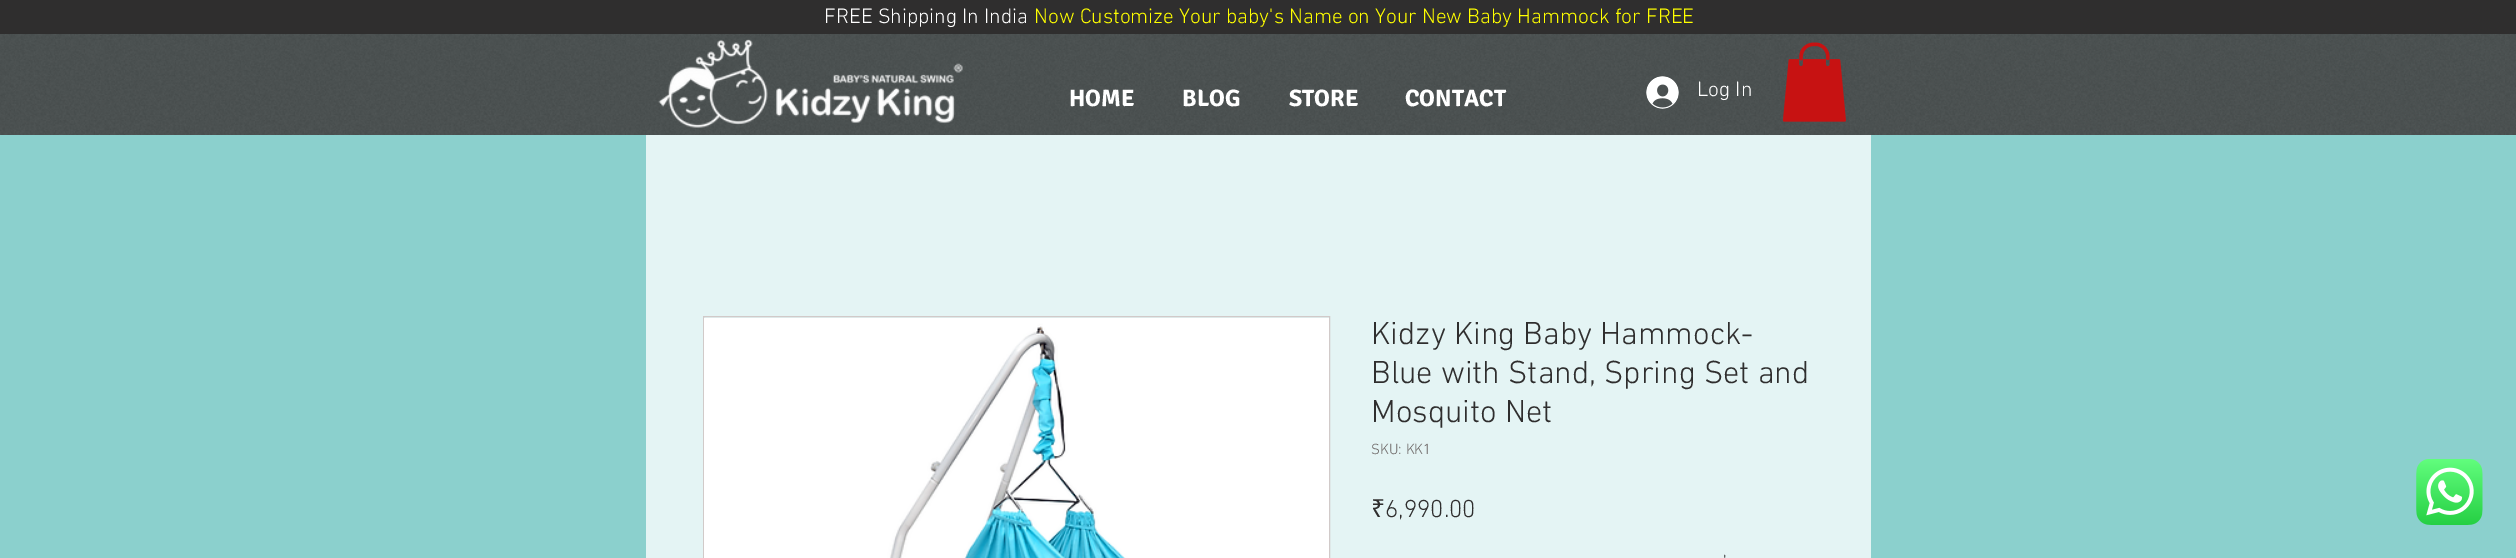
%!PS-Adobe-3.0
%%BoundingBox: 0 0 2516 558
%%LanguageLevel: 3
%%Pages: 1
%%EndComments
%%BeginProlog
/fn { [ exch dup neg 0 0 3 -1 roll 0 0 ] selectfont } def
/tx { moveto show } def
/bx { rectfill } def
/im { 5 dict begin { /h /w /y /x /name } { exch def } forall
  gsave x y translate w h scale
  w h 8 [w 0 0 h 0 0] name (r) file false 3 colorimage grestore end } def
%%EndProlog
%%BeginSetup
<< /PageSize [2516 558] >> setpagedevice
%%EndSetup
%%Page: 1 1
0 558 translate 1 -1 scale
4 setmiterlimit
0.545 0.816 0.804 setrgbcolor
0 0 2516 558 bx
0.184 0.18 0.18 setrgbcolor
0 0 2516 34 bx
/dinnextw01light-Light 21.25 fn
1 setgray
(FREE Shipping In India) 824 23 tx
1 1 0 setrgbcolor
(Now Customize Your baby's Name on Your New Baby Hammock for FREE) 1034 23 tx
0.294 0.318 0.318 setrgbcolor
0 34 2516 101 bx
(image3.raw) 0 34 2516 101 im
(image0.raw) 658 39 305 89 im
/Signika-Bold 23.75 fn
1 setgray
(HOME) 1069 106 tx
(BLOG) 1182 106 tx
(STORE) 1289 106 tx
(CONTACT) 1405 106 tx
(image1.raw) 1646 76 33 33 im
/dinnextw01light-Light 21.25 fn
(Log In) 1697 96 tx
(image2.raw) 1782 42 64 80 im
0.894 0.957 0.957 setrgbcolor
646 135 1225 423 bx
0.82 0.792 0.788 setrgbcolor
703.5 316.5 626 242 rectstroke
(image4.raw) 704 318 625 240 im
/dinnextw01light-Light 32.5 fn
0.184 0.18 0.18 setrgbcolor
(Kidzy King Baby Hammock-) 1371 344 tx
(Blue with Stand, Spring Set and) 1371 383 tx
(Mosquito Net) 1371 422 tx
/dinnextw01light-Light 15 fn
0.431 0.412 0.408 setrgbcolor
(SKU: KK1) 1371 454 tx
/NotoSans-Regular 25 fn
0.184 0.18 0.18 setrgbcolor
(₹) 1371 517 tx
/dinnextw01light-Light 25 fn
(6,990.00) 1385 517 tx
/dinnextw01light-Light 18 fn
(') 1723 567 tx
(image5.raw) 2416 459 67 66 im
showpage
%%EOF
